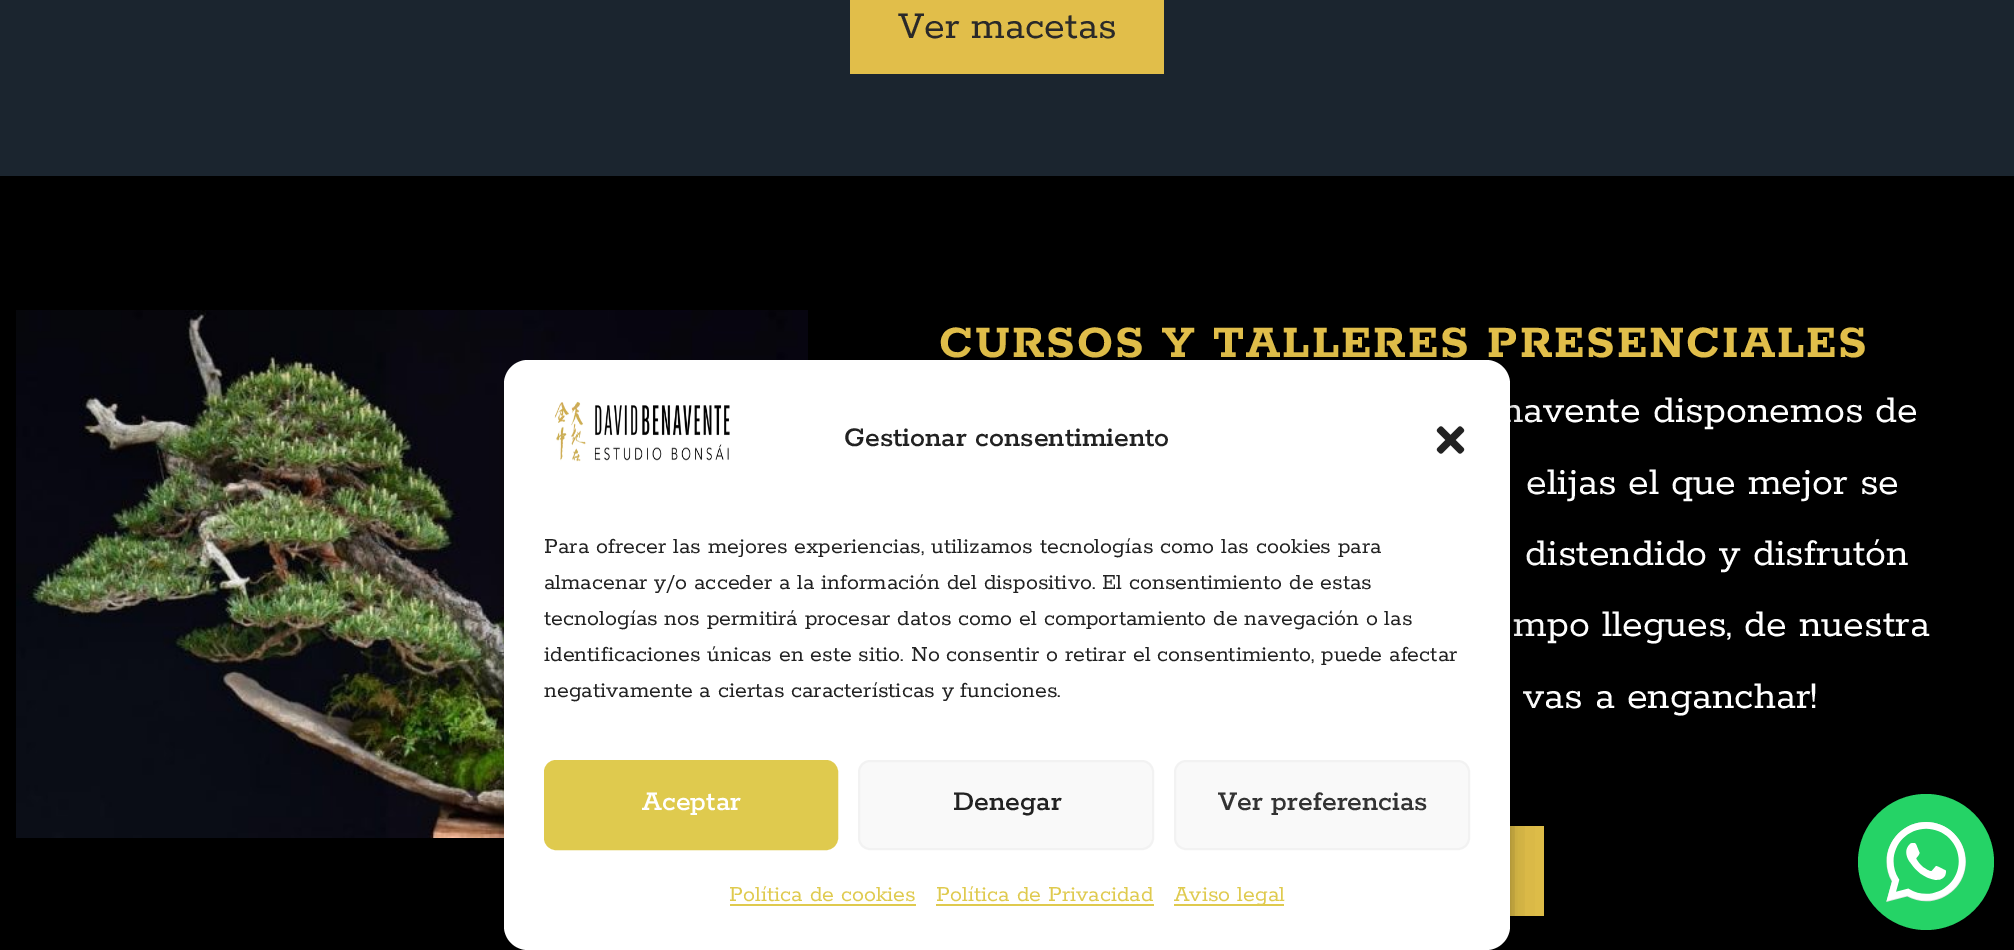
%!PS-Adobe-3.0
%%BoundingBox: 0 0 2014 950
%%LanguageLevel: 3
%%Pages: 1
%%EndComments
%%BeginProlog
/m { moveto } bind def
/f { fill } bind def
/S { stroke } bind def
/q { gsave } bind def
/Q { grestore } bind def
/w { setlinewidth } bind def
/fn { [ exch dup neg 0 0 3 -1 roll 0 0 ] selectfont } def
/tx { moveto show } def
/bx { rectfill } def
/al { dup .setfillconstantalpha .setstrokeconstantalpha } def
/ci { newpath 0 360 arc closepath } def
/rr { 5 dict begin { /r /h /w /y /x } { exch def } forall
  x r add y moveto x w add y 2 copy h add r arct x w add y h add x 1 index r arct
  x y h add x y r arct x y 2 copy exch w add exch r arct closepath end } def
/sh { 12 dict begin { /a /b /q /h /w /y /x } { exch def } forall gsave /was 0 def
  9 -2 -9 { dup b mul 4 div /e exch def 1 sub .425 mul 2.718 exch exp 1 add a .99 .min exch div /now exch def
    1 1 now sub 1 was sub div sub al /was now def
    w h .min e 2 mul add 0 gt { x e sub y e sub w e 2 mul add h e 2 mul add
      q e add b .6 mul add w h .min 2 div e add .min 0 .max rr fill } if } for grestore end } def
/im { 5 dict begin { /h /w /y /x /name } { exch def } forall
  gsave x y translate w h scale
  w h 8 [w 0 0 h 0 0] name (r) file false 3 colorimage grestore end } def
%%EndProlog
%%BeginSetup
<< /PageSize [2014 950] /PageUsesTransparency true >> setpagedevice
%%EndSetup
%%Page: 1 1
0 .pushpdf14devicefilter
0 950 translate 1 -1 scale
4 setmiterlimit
0.106 0.145 0.184 setrgbcolor
0 0 2014 950 bx
0.882 0.745 0.29 setrgbcolor
850 0 314 74 bx
/Rokkitt-SemiBold 42 fn
0.165 0.161 0.161 setrgbcolor
(Ver macetas) 898 38 tx
0 setgray
0 176 2014 774 bx
(image0.raw) 16 310 792 528 im
/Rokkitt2-SemiBold 50 fn
0.882 0.745 0.29 setrgbcolor
939 357 m 2 0 (CURSOS Y TALLERES PRESENCIALES) ashow
/Rokkitt-SemiBold 42 fn
1 setgray
(navente disponemos de) 1501 422 tx
(elijas el que mejor se) 1526 494 tx
(distendido y disfrutón) 1525 565 tx
(mpo llegues, de nuestra) 1513 636 tx
(vas a enganchar!) 1523 708 tx
0.882 0.745 0.29 setrgbcolor
1510 826 34 90 bx
0 setgray
504 372 1006 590 24 6 0.23 sh
504 380 1006 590 24 20 0.19 sh
1 setgray
504 360 1006 590 24 rr f
(image1.raw) 554 401 176 61 im
/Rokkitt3-SemiBold 30 fn
0.133 setgray
(Gestionar consentimiento) 844 446 tx
(image2.raw) 1436 426 29 28 im
/Rokkitt-SemiBold 24 fn
(Para ofrecer las mejores experiencias, utilizamos tecnologías como las cookies para) 544 553 tx
(almacenar y/o acceder a la información del dispositivo. El consentimiento de estas) 544 589 tx
(tecnologías nos permitirá procesar datos como el comportamiento de navegación o las) 544 625 tx
(identificaciones únicas en este sitio. No consentir o retirar el consentimiento, puede afectar) 544 661 tx
(negativamente a ciertas características y funciones.) 544 697 tx
0.875 0.792 0.306 setrgbcolor
545 761 292 88 11 rr q f Q
2 w
S
/Rokkitt3-SemiBold 30 fn
1 setgray
(Aceptar) 642 810 tx
0.976 setgray
859 761 294 88 11 rr q f Q
0.949 setgray
S
0.133 setgray
(Denegar) 953 810 tx
0.976 setgray
1175 761 294 88 11 rr q f Q
0.949 setgray
S
0.2 setgray
(Ver preferencias) 1218 810 tx
/Rokkitt-SemiBold 24 fn
0.875 0.792 0.306 setrgbcolor
(Política de cookies) 729 901 tx
730 904 186 2 bx
(Política de Privacidad) 936 901 tx
936 904 218 2 bx
1174 904 110 2 bx
(Aviso legal) 1174 901 tx
0.145 0.827 0.4 setrgbcolor
1926 862 68 ci f
(image3.raw) 1886 822 80 80 im
.poppdf14devicefilter showpage
%%EOF
